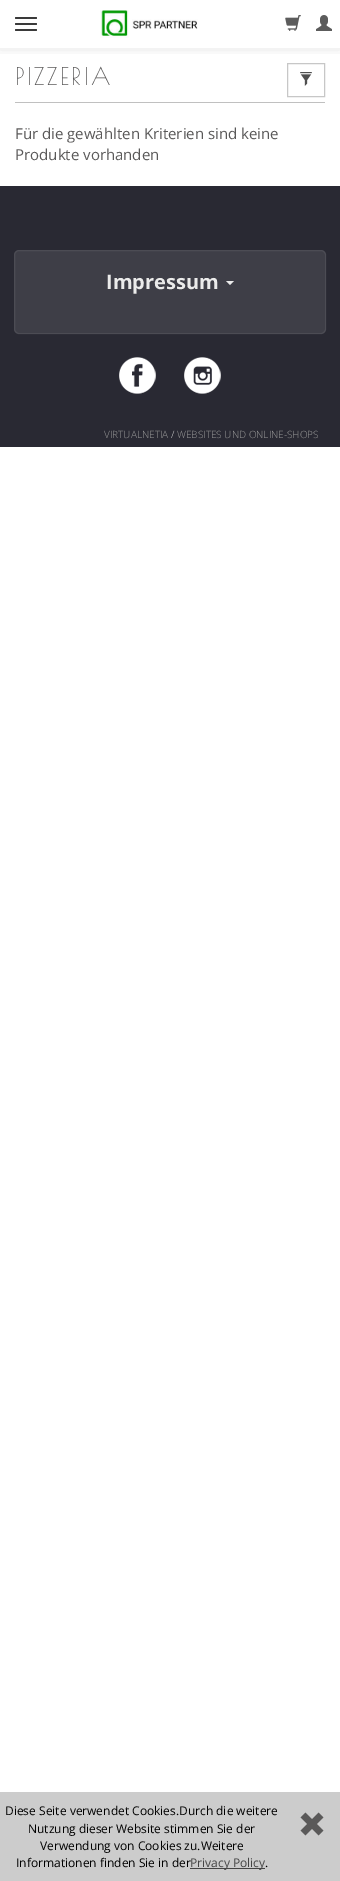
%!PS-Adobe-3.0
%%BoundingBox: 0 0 340 1881
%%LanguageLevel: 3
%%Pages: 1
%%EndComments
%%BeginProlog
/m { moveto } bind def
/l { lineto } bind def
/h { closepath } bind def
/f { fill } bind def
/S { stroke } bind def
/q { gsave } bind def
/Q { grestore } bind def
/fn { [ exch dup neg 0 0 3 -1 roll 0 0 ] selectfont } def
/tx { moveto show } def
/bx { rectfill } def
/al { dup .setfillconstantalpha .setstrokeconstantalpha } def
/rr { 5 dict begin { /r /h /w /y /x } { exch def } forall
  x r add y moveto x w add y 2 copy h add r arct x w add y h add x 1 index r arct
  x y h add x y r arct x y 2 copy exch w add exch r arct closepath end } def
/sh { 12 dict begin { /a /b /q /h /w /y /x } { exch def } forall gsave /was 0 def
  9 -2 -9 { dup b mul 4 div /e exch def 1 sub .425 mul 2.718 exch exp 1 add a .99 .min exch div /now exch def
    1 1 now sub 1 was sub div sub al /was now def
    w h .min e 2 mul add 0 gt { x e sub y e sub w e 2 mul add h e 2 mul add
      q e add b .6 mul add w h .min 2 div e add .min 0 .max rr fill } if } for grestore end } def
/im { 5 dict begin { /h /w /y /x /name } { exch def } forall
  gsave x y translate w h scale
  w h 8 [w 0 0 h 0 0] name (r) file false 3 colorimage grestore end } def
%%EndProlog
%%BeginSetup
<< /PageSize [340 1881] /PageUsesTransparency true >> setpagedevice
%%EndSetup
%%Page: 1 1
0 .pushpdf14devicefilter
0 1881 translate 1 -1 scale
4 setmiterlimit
1 setgray
0 0 340 1881 bx
0.78 setgray
287.5 63.5 37 33 rectstroke
q
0 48 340 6 rectclip
0 setgray
0 -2 340 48 0 7 0.15 sh
Q
(image0.raw) 100 10 98 28 im
0.227 setgray
15 17 22 2 1 rr f
15 23 22 2 1 rr f
15 29 22 2 1 rr f
(image1.raw) 285 15 16 16 im
(image2.raw) 316 15 16 16 im
0.753 setgray
15 102 310 1 bx
/PoiretOne-Regular 24 fn
0.353 0.349 0.349 setrgbcolor
15 85 m 2.5 0 (PIZZERIA) ashow
(image3.raw) 300 72 12 14 im
/OpenSans-Regular 15 fn
(Für die gewählten Kriterien sind keine) 15 139 tx
(Produkte vorhanden) 15 160 tx
0.161 0.161 0.2 setrgbcolor
0 186 340 261 bx
0.243 0.243 0.278 setrgbcolor
14 250 312 84 5 rr f
0.07 al
1 setgray
14.5 250.5 311 83 4.5 rr S
/OpenSans-Bold 20 fn
1 al
0.922 setgray
(Impressum) 106 289 tx
226 281 m 234 281 l 230 285 l h f
(image4.raw) 119 357 37 37 im
(image5.raw) 184 357 37 37 im
/OpenSans-Light 10 fn
0.58 setgray
(VIRTUALNETIA) 104 438 tx
0.8 setgray
(/) 171 438 tx
0.58 setgray
(WEBSITES UND ONLINE-SHOPS) 177 438 tx
0.8 setgray
0 1792 340 89 bx
/OpenSans-Regular 12 fn
0 setgray
(Diese Seite verwendet Cookies.Durch die weitere) 5 1815 tx
(Nutzung dieser Website stimmen Sie der) 28 1833 tx
(Verwendung von Cookies zu.Weitere) 40 1850 tx
(Informationen finden Sie in der) 16 1867 tx
0.267 setgray
190 1868 75 1 bx
(Privacy Policy) 190 1867 tx
0 setgray
(.) 265 1867 tx
(image6.raw) 300 1812 24 24 im
.poppdf14devicefilter showpage
%%EOF
